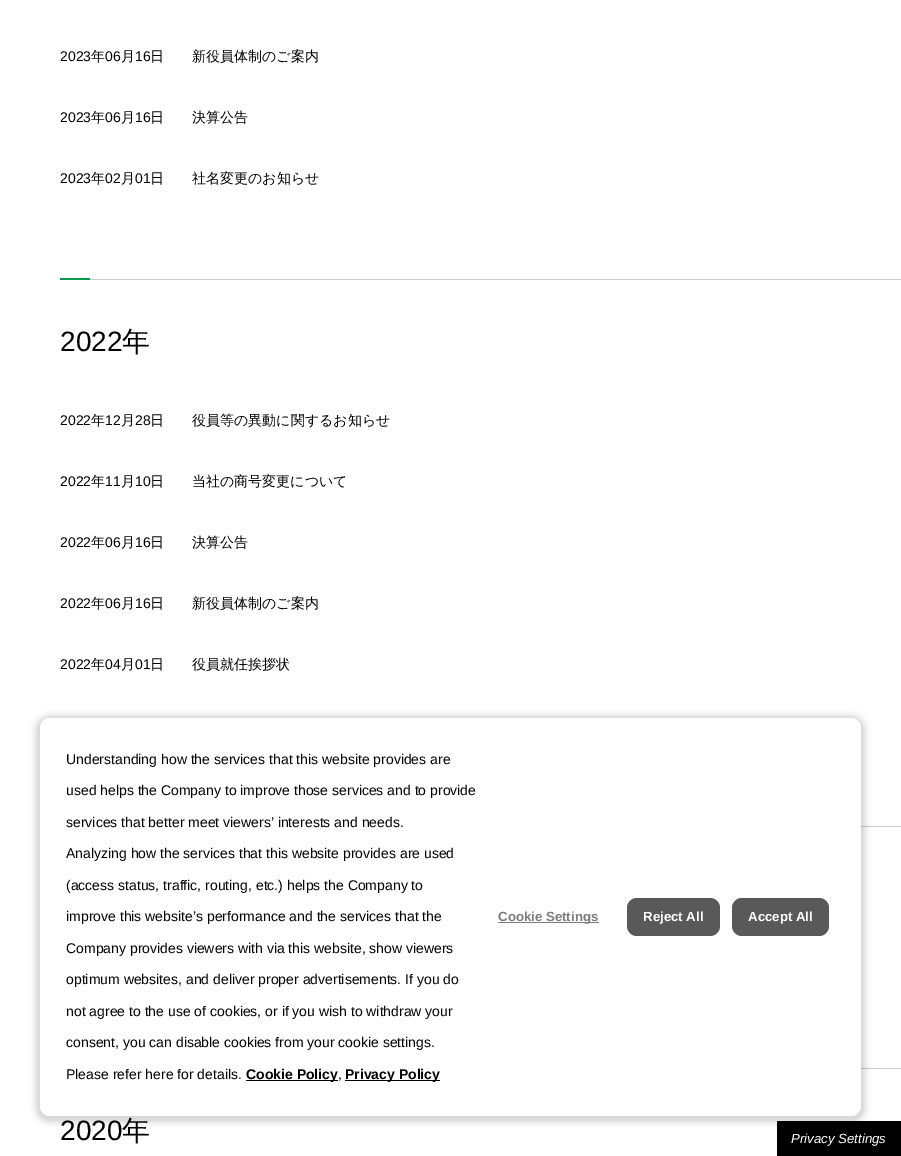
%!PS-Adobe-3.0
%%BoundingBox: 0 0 901 1156
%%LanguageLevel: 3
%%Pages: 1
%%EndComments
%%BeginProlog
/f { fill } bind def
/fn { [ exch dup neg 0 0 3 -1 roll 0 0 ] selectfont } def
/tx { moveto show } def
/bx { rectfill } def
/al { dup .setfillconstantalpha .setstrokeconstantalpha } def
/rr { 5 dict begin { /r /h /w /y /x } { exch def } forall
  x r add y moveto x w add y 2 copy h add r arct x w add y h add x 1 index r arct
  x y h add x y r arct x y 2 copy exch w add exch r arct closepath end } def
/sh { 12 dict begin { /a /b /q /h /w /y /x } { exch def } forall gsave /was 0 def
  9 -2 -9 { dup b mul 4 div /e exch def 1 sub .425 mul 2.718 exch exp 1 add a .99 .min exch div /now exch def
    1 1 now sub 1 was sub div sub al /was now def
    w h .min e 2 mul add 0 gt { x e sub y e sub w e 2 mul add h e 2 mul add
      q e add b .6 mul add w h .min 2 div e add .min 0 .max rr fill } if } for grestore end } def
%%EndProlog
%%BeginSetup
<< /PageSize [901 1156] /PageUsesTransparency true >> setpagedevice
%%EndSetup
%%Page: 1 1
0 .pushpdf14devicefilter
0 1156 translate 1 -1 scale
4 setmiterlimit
1 setgray
0 0 901 1156 bx
/LiberationSans-Regular 14 fn
0 setgray
(2023) 60 61 tx
/WenQuanYiZenHei-Medium 14 fn
(年) 91 61 tx
/LiberationSans-Regular 14 fn
(06) 105 61 tx
/WenQuanYiZenHei-Medium 14 fn
(月) 121 61 tx
/LiberationSans-Regular 14 fn
(16) 135 61 tx
/WenQuanYiZenHei-Medium 14 fn
(日) 150 61 tx
(新役員体制のご案内) 192 61 tx
/LiberationSans-Regular 14 fn
(2023) 60 122 tx
/WenQuanYiZenHei-Medium 14 fn
(年) 91 122 tx
/LiberationSans-Regular 14 fn
(06) 105 122 tx
/WenQuanYiZenHei-Medium 14 fn
(月) 121 122 tx
/LiberationSans-Regular 14 fn
(16) 135 122 tx
/WenQuanYiZenHei-Medium 14 fn
(日) 150 122 tx
(決算公告) 192 122 tx
/LiberationSans-Regular 14 fn
(2023) 60 183 tx
/WenQuanYiZenHei-Medium 14 fn
(年) 91 183 tx
/LiberationSans-Regular 14 fn
(02) 105 183 tx
/WenQuanYiZenHei-Medium 14 fn
(月) 121 183 tx
/LiberationSans-Regular 14 fn
(01) 135 183 tx
/WenQuanYiZenHei-Medium 14 fn
(日) 150 183 tx
(社名変更のお知らせ) 192 183 tx
0.8 setgray
90 279 811 1 bx
0 0.608 0.29 setrgbcolor
60 278 30 2 bx
/LiberationSans-Regular 28 fn
0 setgray
(2022) 60 351 tx
/WenQuanYiZenHei-Medium 28 fn
(年) 122 351 tx
/LiberationSans-Regular 14 fn
(2022) 60 425 tx
/WenQuanYiZenHei-Medium 14 fn
(年) 91 425 tx
/LiberationSans-Regular 14 fn
(12) 105 425 tx
/WenQuanYiZenHei-Medium 14 fn
(月) 121 425 tx
/LiberationSans-Regular 14 fn
(28) 135 425 tx
/WenQuanYiZenHei-Medium 14 fn
(日) 150 425 tx
(役員等の異動に関するお知らせ) 192 425 tx
/LiberationSans-Regular 14 fn
(2022) 60 486 tx
/WenQuanYiZenHei-Medium 14 fn
(年) 91 486 tx
/LiberationSans-Regular 14 fn
(11) 105 486 tx
/WenQuanYiZenHei-Medium 14 fn
(月) 121 486 tx
/LiberationSans-Regular 14 fn
(10) 135 486 tx
/WenQuanYiZenHei-Medium 14 fn
(日) 150 486 tx
(当社の商号変更について) 192 486 tx
/LiberationSans-Regular 14 fn
(2022) 60 547 tx
/WenQuanYiZenHei-Medium 14 fn
(年) 91 547 tx
/LiberationSans-Regular 14 fn
(06) 105 547 tx
/WenQuanYiZenHei-Medium 14 fn
(月) 121 547 tx
/LiberationSans-Regular 14 fn
(16) 135 547 tx
/WenQuanYiZenHei-Medium 14 fn
(日) 150 547 tx
(決算公告) 192 547 tx
/LiberationSans-Regular 14 fn
(2022) 60 608 tx
/WenQuanYiZenHei-Medium 14 fn
(年) 91 608 tx
/LiberationSans-Regular 14 fn
(06) 105 608 tx
/WenQuanYiZenHei-Medium 14 fn
(月) 121 608 tx
/LiberationSans-Regular 14 fn
(16) 135 608 tx
/WenQuanYiZenHei-Medium 14 fn
(日) 150 608 tx
(新役員体制のご案内) 192 608 tx
/LiberationSans-Regular 14 fn
(2022) 60 669 tx
/WenQuanYiZenHei-Medium 14 fn
(年) 91 669 tx
/LiberationSans-Regular 14 fn
(04) 105 669 tx
/WenQuanYiZenHei-Medium 14 fn
(月) 121 669 tx
/LiberationSans-Regular 14 fn
(01) 135 669 tx
/WenQuanYiZenHei-Medium 14 fn
(日) 150 669 tx
(役員就任挨拶状) 192 669 tx
0.8 setgray
861 826 40 1 bx
861 1068 40 1 bx
/LiberationSans-Regular 28 fn
0 setgray
(2020) 60 1140 tx
/WenQuanYiZenHei-Medium 28 fn
(年) 122 1140 tx
777 1121 124 35 bx
37 717 827 404 13 1.5 0.05 sh
34 714 833 410 16 3 0.1 sh
1 setgray
40 718 821 398 10 rr f
/LiberationSans-Regular 14 fn
0 setgray
(Understanding how the services that this website provides are) 66 764 tx
(used helps the Company to improve those services and to provide) 66 795 tx
(services that better meet viewers’ interests and needs.) 66 827 tx
(Analyzing how the services that this website provides are used) 66 858 tx
(\(access status, traffic, routing, etc.\) helps the Company to) 66 890 tx
(improve this website’s performance and the services that the) 66 921 tx
(Company provides viewers with via this website, show viewers) 66 953 tx
(optimum websites, and deliver proper advertisements. If you do) 66 984 tx
(not agree to the use of cookies, or if you wish to withdraw your) 66 1016 tx
(consent, you can disable cookies from your cookie settings.) 66 1047 tx
(Please refer here for details.) 66 1079 tx
246 1080 92 1 bx
/LiberationSans-Bold 14 fn
(Cookie Policy) 246 1079 tx
/LiberationSans-Regular 14 fn
(,) 338 1079 tx
345 1080 95 1 bx
/LiberationSans-Bold 14 fn
(Privacy Policy) 345 1079 tx
0.486 setgray
498 922 101 1 bx
/LiberationSans-Bold 13.25 fn
(Cookie Settings) 498 921 tx
0.349 setgray
627 898 93 38 10 rr f
1 setgray
(Reject All) 643 921 tx
0.349 setgray
732 898 97 38 10 rr f
1 setgray
(Accept All) 748 921 tx
/LiberationSans-Italic 13.25 fn
(Privacy Settings) 791 1143 tx
.poppdf14devicefilter showpage
%%EOF
